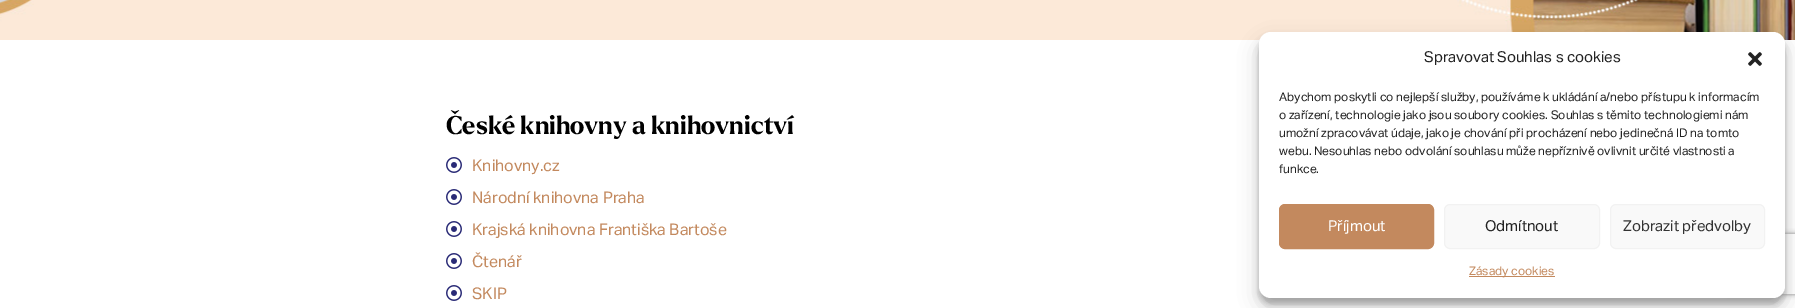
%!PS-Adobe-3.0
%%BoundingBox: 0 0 1795 308
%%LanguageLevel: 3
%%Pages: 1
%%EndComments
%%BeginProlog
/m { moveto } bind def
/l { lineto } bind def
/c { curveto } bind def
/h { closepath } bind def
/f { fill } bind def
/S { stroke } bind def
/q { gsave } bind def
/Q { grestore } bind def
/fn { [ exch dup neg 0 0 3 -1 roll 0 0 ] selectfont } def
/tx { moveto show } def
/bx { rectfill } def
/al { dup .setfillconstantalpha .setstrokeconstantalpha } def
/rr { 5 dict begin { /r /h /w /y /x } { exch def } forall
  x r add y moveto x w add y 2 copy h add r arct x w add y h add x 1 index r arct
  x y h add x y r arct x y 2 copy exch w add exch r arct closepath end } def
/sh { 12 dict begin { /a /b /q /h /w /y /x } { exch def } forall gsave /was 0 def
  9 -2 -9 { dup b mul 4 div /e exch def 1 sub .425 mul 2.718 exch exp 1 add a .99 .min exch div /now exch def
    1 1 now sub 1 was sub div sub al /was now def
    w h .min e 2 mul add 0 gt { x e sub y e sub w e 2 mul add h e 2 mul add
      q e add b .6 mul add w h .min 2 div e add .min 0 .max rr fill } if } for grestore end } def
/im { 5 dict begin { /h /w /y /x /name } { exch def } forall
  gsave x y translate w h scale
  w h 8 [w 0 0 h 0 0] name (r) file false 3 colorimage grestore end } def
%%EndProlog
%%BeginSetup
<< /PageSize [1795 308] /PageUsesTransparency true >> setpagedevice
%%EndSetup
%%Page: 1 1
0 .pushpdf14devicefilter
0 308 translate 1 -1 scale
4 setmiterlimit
1 setgray
0 0 1795 308 bx
(image0.raw) 0 0 1795 40 im
/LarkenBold-Bold 25 fn
0 setgray
(České knihovny a knihovnictví) 446 134 tx
(image1.raw) 446 157 16 16 im
/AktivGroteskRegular-Regular 16 fn
0.765 0.537 0.369 setrgbcolor
(Knihovny.cz) 472 171 tx
(image1.raw) 446 189 16 16 im
(Národní knihovna Praha) 472 203 tx
(image1.raw) 446 221 16 16 im
(Krajská knihovna Františka Bartoše) 472 235 tx
(image1.raw) 446 253 16 16 im
(Čtenář) 472 267 tx
(image1.raw) 446 285 16 16 im
(SKIP) 472 299 tx
0 setgray
1259 38 526 266 12 3 0.23 sh
1259 42 526 266 12 10 0.19 sh
q
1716 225 m 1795 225 l 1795 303 l 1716 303 l h 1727 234 m 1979 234 l 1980 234 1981 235 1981 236 c 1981 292 l 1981 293 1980 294 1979 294 c 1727 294 l 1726 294 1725 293 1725 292 c 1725 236 l 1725 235 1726 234 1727 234 c h eoclip newpath
0.502 setgray
1725 234 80 60 2 2.5 1 sh
Q
1 setgray
1259 32 526 266 12 rr f
/AktivGroteskRegular-Regular 15 fn
0.133 setgray
(Spravovat Souhlas s cookies) 1424 62 tx
(image2.raw) 1748 52 14 14 im
/AktivGroteskRegular-Regular 12 fn
(Abychom poskytli co nejlepší služby, používáme k ukládání a/nebo přístupu k informacím) 1279 101 tx
(o zařízení, technologie jako jsou soubory cookies. Souhlas s těmito technologiemi nám) 1279 119 tx
(umožní zpracovávat údaje, jako je chování při procházení nebo jedinečná ID na tomto) 1279 137 tx
(webu. Nesouhlas nebo odvolání souhlasu může nepříznivě ovlivnit určité vlastnosti a) 1279 155 tx
(funkce.) 1279 173 tx
0.765 0.537 0.369 setrgbcolor
1279.5 204.5 154 44 5.5 rr q f Q
S
/AktivGroteskRegular-Regular 15 fn
1 setgray
(Příjmout) 1328 231 tx
0.976 setgray
1444.5 204.5 155 44 5.5 rr q f Q
0.949 setgray
S
0.133 setgray
(Odmítnout) 1485 231 tx
0.976 setgray
1610.5 204.5 154 44 5.5 rr q f Q
0.949 setgray
S
0.2 setgray
(Zobrazit předvolby) 1623 231 tx
0.765 0.537 0.369 setrgbcolor
1469 276 86 1 bx
/AktivGroteskRegular-Regular 12 fn
(Zásady cookies) 1469 275 tx
.poppdf14devicefilter showpage
%%EOF
